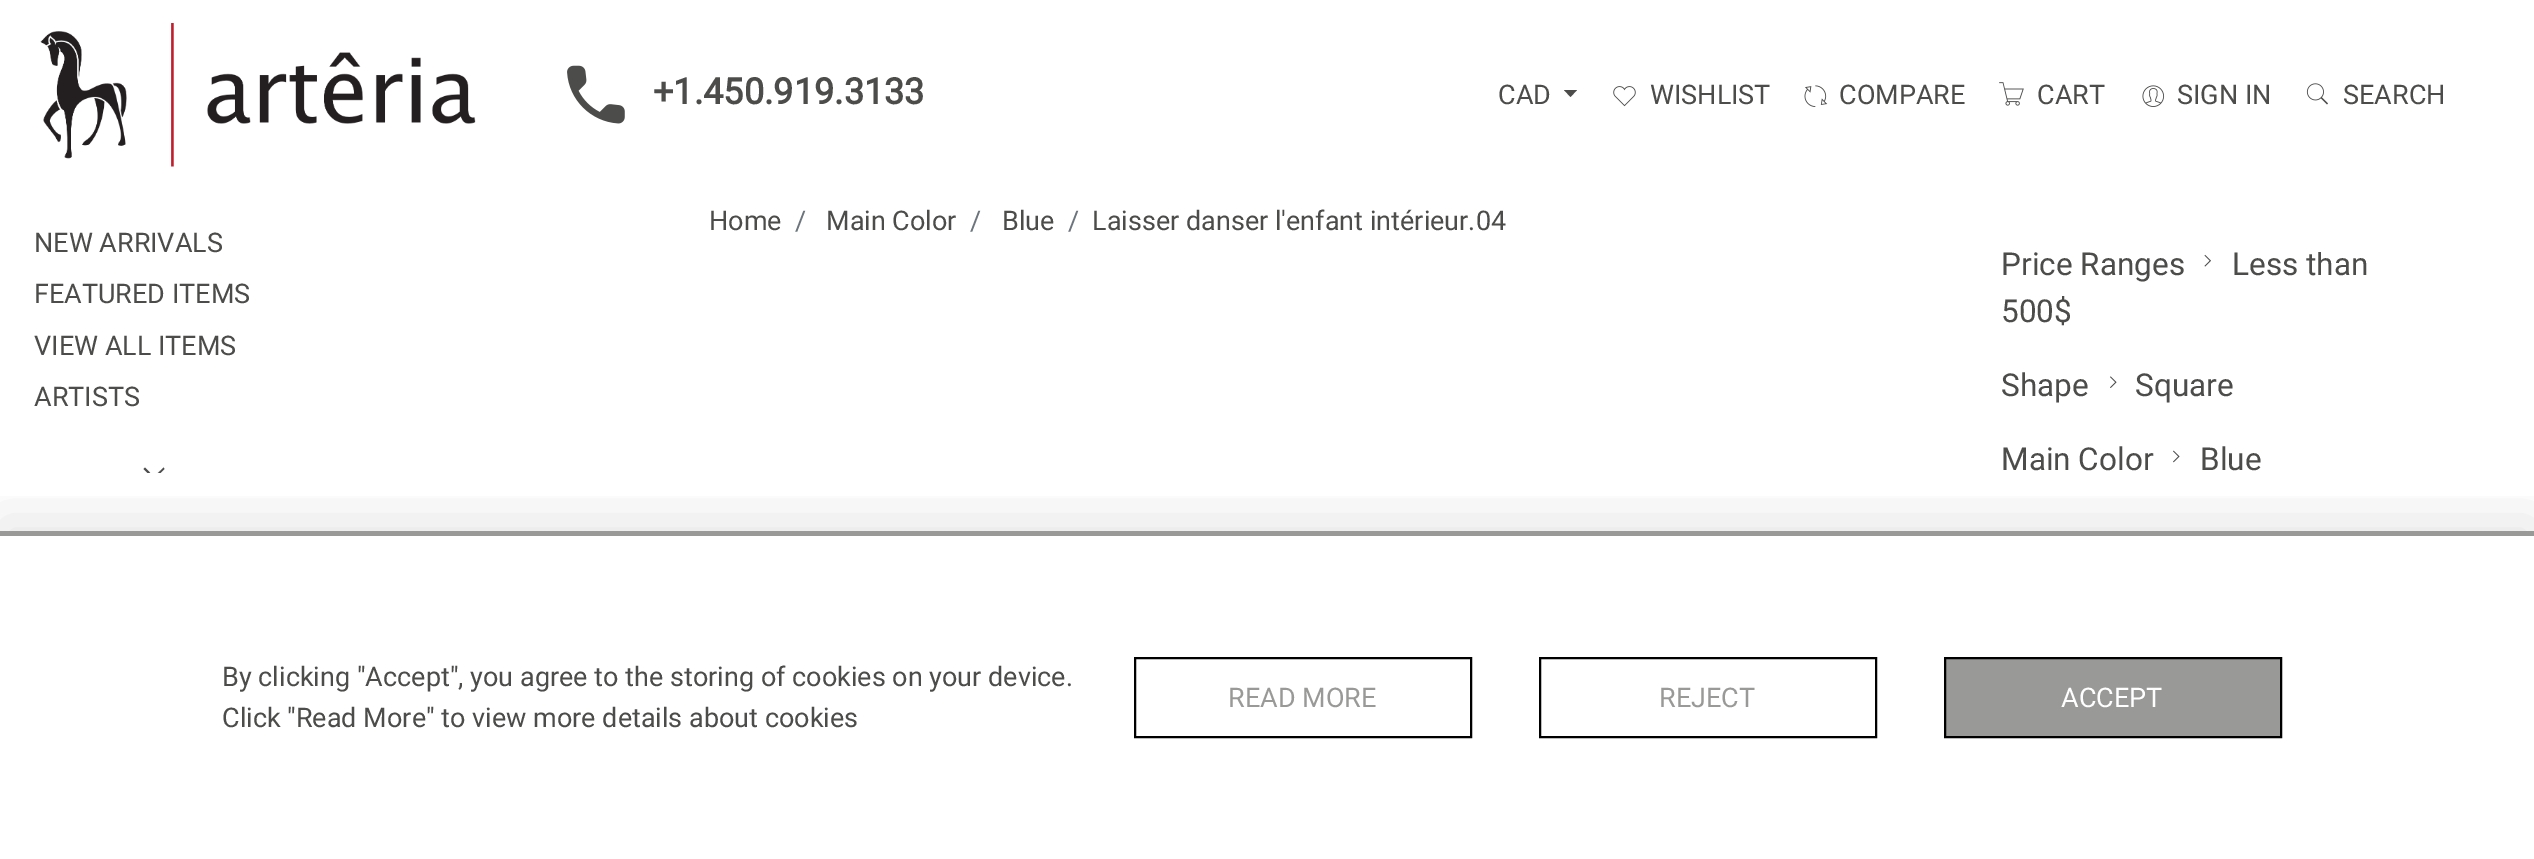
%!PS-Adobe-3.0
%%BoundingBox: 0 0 2534 859
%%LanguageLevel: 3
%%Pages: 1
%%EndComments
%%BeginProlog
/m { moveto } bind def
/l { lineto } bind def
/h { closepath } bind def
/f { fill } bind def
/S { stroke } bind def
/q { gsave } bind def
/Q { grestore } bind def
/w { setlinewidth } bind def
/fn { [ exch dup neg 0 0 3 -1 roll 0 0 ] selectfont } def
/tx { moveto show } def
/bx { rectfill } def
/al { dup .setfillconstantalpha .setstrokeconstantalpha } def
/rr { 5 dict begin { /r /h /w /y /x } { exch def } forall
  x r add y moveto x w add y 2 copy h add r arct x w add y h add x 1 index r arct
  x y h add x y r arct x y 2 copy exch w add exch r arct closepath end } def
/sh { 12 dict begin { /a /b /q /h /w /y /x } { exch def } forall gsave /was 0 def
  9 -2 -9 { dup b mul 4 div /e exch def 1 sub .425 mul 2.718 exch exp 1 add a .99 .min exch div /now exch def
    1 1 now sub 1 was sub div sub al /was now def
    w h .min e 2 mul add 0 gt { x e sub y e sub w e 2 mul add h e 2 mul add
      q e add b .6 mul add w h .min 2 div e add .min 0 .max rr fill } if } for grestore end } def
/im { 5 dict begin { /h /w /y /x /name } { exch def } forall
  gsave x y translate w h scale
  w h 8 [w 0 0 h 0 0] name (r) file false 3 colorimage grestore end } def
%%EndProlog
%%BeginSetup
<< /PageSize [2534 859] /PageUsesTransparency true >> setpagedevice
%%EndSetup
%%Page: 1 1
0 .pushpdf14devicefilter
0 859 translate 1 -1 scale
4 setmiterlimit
1 setgray
0 0 2534 859 bx
(image0.raw) 40 23 436 144 im
(image1.raw) 567 65 58 59 im
/Roboto-Bold 36 fn
0.298 0.298 0.294 setrgbcolor
(+1.450.919.3133) 653 104 tx
/Roboto-Regular 27 fn
(CAD) 1498 104 tx
1564 90 m 1577 90 l 1570.5 97 l h f
(image2.raw) 1613 86 23 21 im
(WISHLIST) 1650 104 tx
(image3.raw) 1804 85 24 22 im
(COMPARE) 1839 104 tx
(image4.raw) 1999 82 25 24 im
(CART) 2037 104 tx
(image5.raw) 2142 85 23 22 im
(SIGN IN) 2177 104 tx
(image6.raw) 2306 83 22 22 im
(SEARCH) 2343 104 tx
(NEW ARRIVALS) 34 252 tx
(FEATURED ITEMS) 34 303 tx
(VIEW ALL ITEMS) 34 355 tx
(ARTISTS) 34 406 tx
q
34 225 607 248 rectclip
153 478 m 154 479.5 l 164.5 469 l 163.5 467.5 l 154 477 l 145 467.5 l 143.5 469 l h f
Q
/Roboto-Regular 31.5 fn
(Less than) 2232 275 tx
1 setgray
2318 251 4 1 bx
/Roboto-Regular 27 fn
0.298 0.298 0.294 setrgbcolor
(Home) 709 230 tx
0.424 0.459 0.49 setrgbcolor
(/) 795 230 tx
0.298 0.298 0.294 setrgbcolor
(Main Color) 826 230 tx
0.424 0.459 0.49 setrgbcolor
(/) 970 230 tx
0.298 0.298 0.294 setrgbcolor
(Blue) 1002 230 tx
0.424 0.459 0.49 setrgbcolor
(/) 1068 230 tx
0.298 0.298 0.294 setrgbcolor
(Laisser danser l'enfant intérieur.04) 1092 230 tx
/Roboto-Regular 31.5 fn
(Price Ranges) 2001 275 tx
(image7.raw) 2204 254 7 13 im
(500$) 2001 322 tx
(Shape) 2001 396 tx
(image8.raw) 2110 376 7 12 im
(Square) 2135 396 tx
(Main Color) 2001 470 tx
(image9.raw) 2173 450 7 13 im
(Blue) 2200 470 tx
q
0 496 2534 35 rectclip
0 setgray
0 520 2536 328 0 29 0.1 sh
Q
0.6 0.6 0.596 setrgbcolor
0 531 2534 5 bx
/Roboto-Regular 27 fn
0.298 0.298 0.294 setrgbcolor
(By clicking "Accept", you agree to the storing of cookies on your device.) 222 686 tx
(Click "Read More" to view more details about cookies) 222 727 tx
0 setgray
2 w
1135 658 336 79 rectstroke
0.6 0.6 0.596 setrgbcolor
(READ MORE) 1228 707 tx
0 setgray
1540 658 336 79 rectstroke
0.6 0.6 0.596 setrgbcolor
(REJECT) 1659 707 tx
1945 658 m 2281 658 l 2281 737 l 1945 737 l h q f Q
0 setgray
S
1 setgray
(ACCEPT) 2061 707 tx
.poppdf14devicefilter showpage
%%EOF
